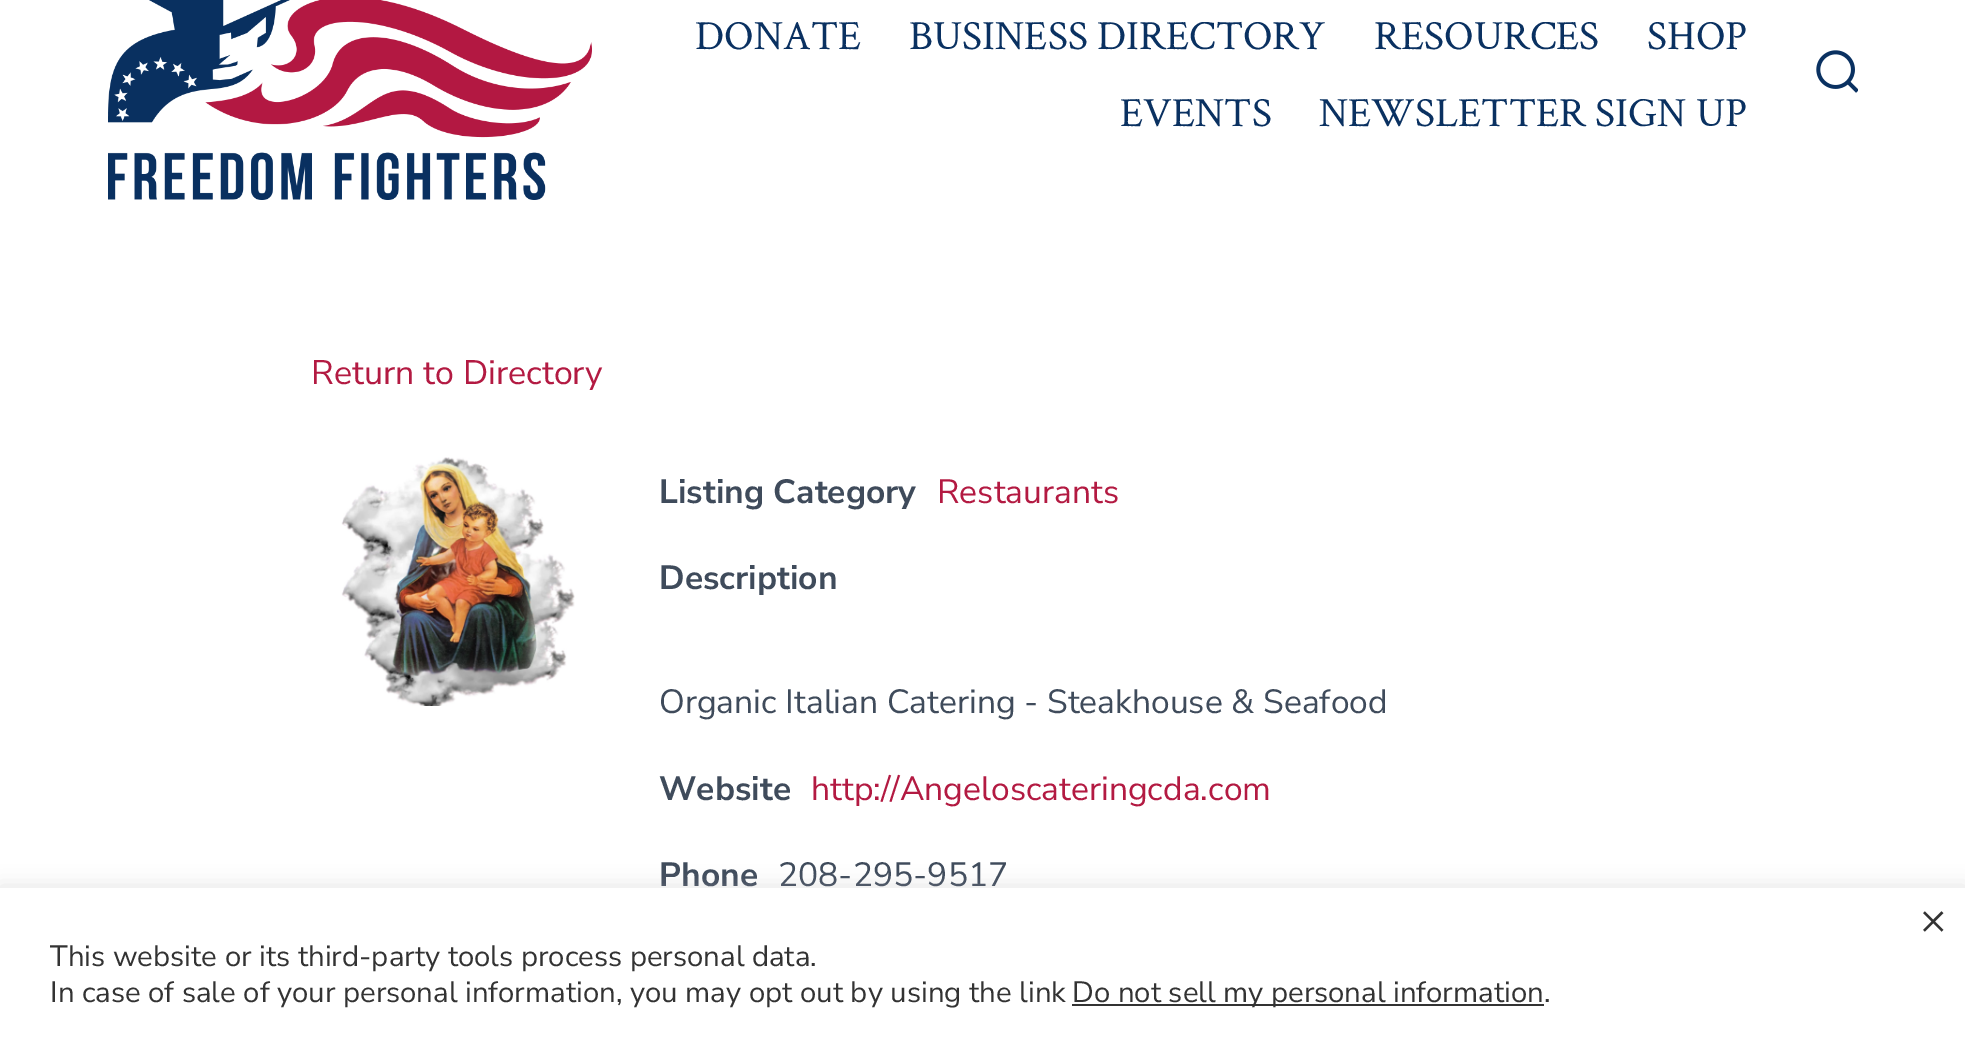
%!PS-Adobe-3.0
%%BoundingBox: 0 0 1965 1059
%%LanguageLevel: 3
%%Pages: 1
%%EndComments
%%BeginProlog
/fn { [ exch dup neg 0 0 3 -1 roll 0 0 ] selectfont } def
/tx { moveto show } def
/bx { rectfill } def
/al { dup .setfillconstantalpha .setstrokeconstantalpha } def
/rr { 5 dict begin { /r /h /w /y /x } { exch def } forall
  x r add y moveto x w add y 2 copy h add r arct x w add y h add x 1 index r arct
  x y h add x y r arct x y 2 copy exch w add exch r arct closepath end } def
/sh { 12 dict begin { /a /b /q /h /w /y /x } { exch def } forall gsave /was 0 def
  9 -2 -9 { dup b mul 4 div /e exch def 1 sub .425 mul 2.718 exch exp 1 add a .99 .min exch div /now exch def
    1 1 now sub 1 was sub div sub al /was now def
    w h .min e 2 mul add 0 gt { x e sub y e sub w e 2 mul add h e 2 mul add
      q e add b .6 mul add w h .min 2 div e add .min 0 .max rr fill } if } for grestore end } def
/im { 5 dict begin { /h /w /y /x /name } { exch def } forall
  gsave x y translate w h scale
  w h 8 [w 0 0 h 0 0] name (r) file false 3 colorimage grestore end } def
%%EndProlog
%%BeginSetup
<< /PageSize [1965 1059] /PageUsesTransparency true >> setpagedevice
%%EndSetup
%%Page: 1 1
0 .pushpdf14devicefilter
0 1059 translate 1 -1 scale
4 setmiterlimit
1 setgray
0 0 1965 1059 bx
(image0.raw) 108 0 484 200 im
/CrimsonText-Regular 41.6 fn
0.039 0.192 0.38 setrgbcolor
(DONATE) 695 49 tx
(BUSINESS DIRECTORY) 909 49 tx
(RESOURCES) 1374 49 tx
(SHOP) 1647 49 tx
(EVENTS) 1120 126 tx
(NEWSLETTER SIGN UP) 1319 126 tx
(image1.raw) 1816 50 42 43 im
/NunitoSans-Regular 34 fn
0.702 0.102 0.259 setrgbcolor
(Return to Directory) 311 384 tx
(image2.raw) 341 457 234 249 im
/NunitoSans-Bold 33.6 fn
0.247 0.294 0.357 setrgbcolor
(Listing Category) 659 503 tx
/NunitoSans-Regular 33.6 fn
0.702 0.102 0.259 setrgbcolor
(Restaurants) 937 503 tx
/NunitoSans-Bold 33.6 fn
0.247 0.294 0.357 setrgbcolor
(Description) 659 589 tx
/NunitoSans-Regular 33.6 fn
(Organic Italian Catering - Steakhouse & Seafood) 659 713 tx
/NunitoSans-Bold 33.6 fn
(Website) 659 800 tx
/NunitoSans-Regular 33.6 fn
0.702 0.102 0.259 setrgbcolor
(http://Angeloscateringcda.com) 811 800 tx
/NunitoSans-Bold 33.6 fn
0.247 0.294 0.357 setrgbcolor
(Phone) 659 886 tx
/NunitoSans-Regular 33.6 fn
(208-295-9517) 778 886 tx
0.675 0.671 0.671 setrgbcolor
0 886 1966 172 0 10 0.3 sh
1 setgray
0 888 1965 171 bx
/NunitoSans-Regular 44 fn
0.2 setgray
(×) 1920 934 tx
/NunitoSans-Regular 29.35 fn
(This website or its third-party tools process personal data.) 50 966 tx
(In case of sale of your personal information, you may opt out by using the link) 50 1002 tx
1072 1004 472 2 bx
(Do not sell my personal information) 1072 1002 tx
(.) 1544 1002 tx
.poppdf14devicefilter showpage
%%EOF
